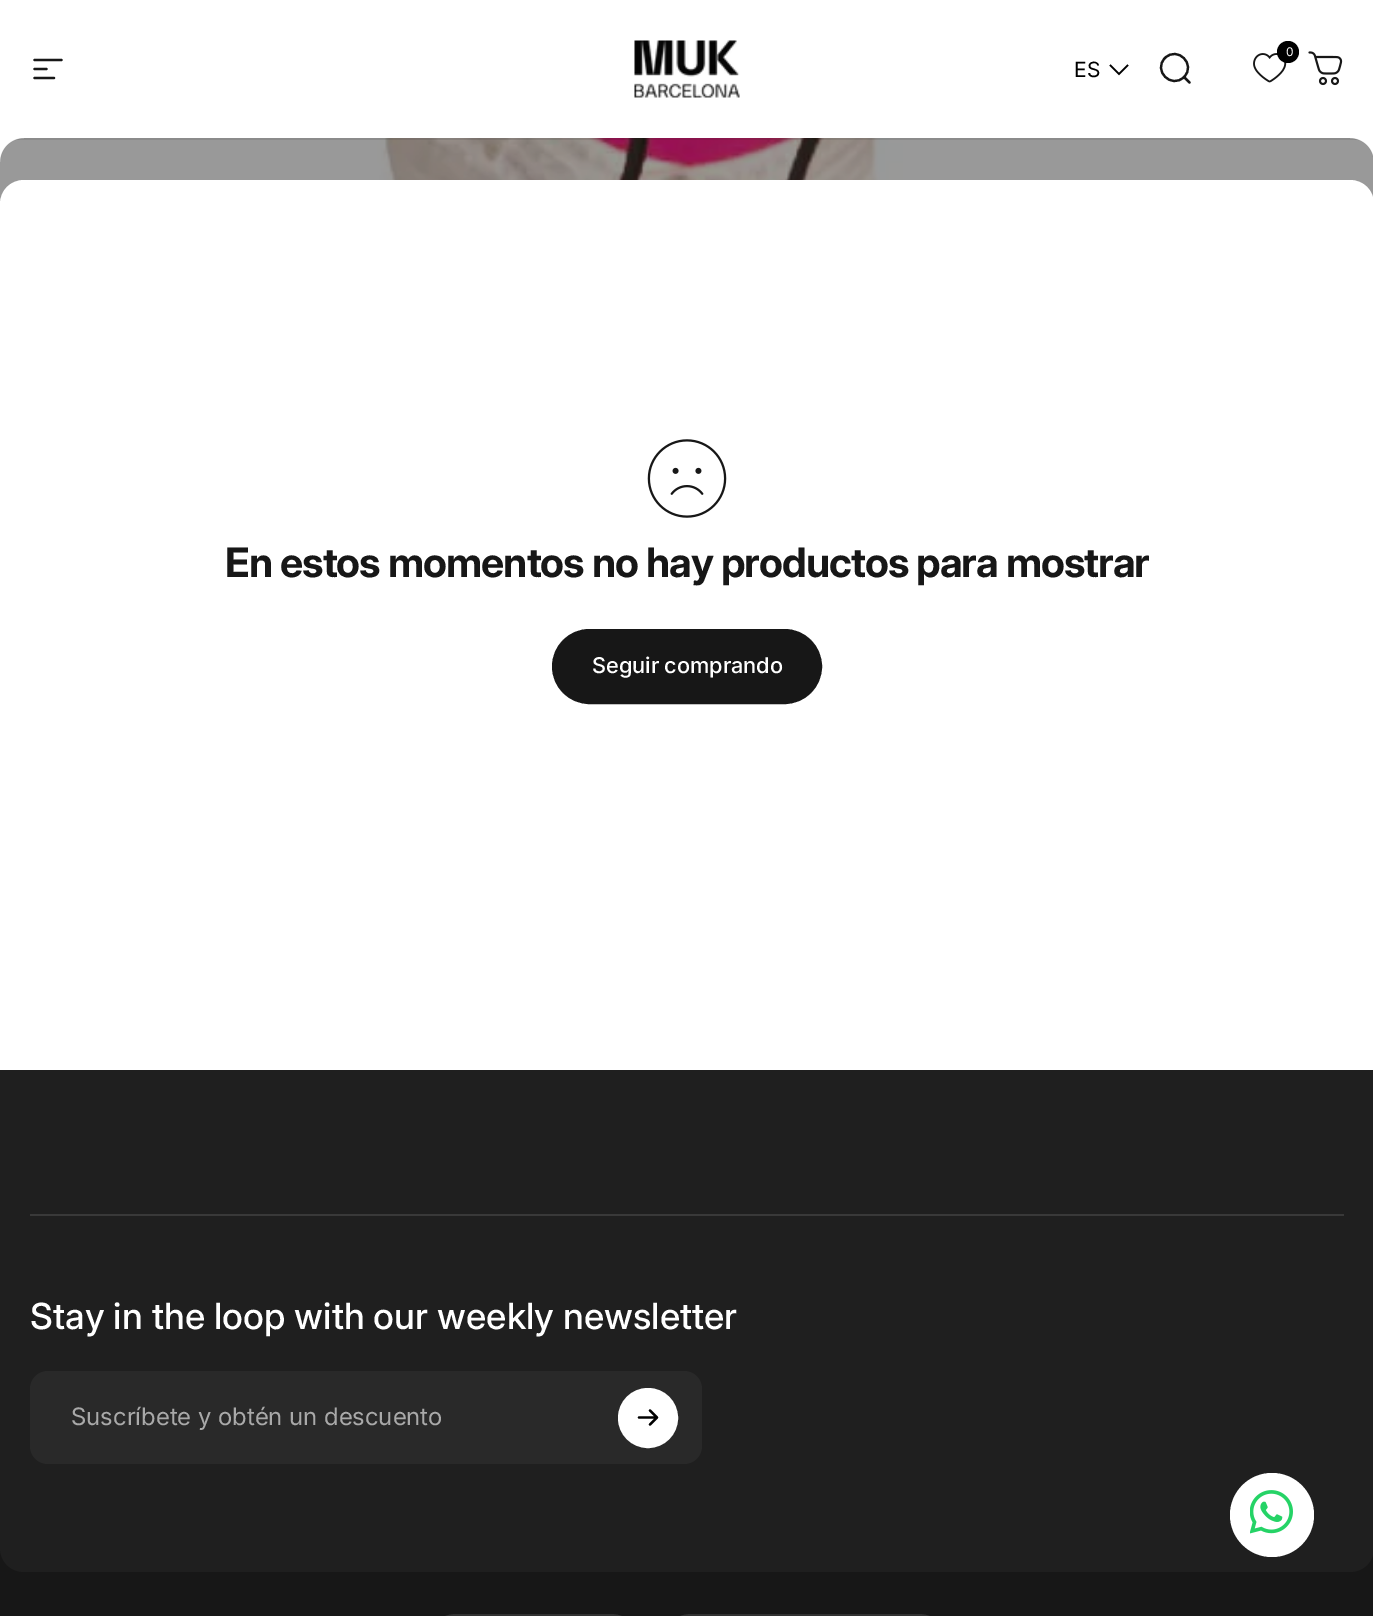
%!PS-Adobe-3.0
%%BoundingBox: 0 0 1373 1616
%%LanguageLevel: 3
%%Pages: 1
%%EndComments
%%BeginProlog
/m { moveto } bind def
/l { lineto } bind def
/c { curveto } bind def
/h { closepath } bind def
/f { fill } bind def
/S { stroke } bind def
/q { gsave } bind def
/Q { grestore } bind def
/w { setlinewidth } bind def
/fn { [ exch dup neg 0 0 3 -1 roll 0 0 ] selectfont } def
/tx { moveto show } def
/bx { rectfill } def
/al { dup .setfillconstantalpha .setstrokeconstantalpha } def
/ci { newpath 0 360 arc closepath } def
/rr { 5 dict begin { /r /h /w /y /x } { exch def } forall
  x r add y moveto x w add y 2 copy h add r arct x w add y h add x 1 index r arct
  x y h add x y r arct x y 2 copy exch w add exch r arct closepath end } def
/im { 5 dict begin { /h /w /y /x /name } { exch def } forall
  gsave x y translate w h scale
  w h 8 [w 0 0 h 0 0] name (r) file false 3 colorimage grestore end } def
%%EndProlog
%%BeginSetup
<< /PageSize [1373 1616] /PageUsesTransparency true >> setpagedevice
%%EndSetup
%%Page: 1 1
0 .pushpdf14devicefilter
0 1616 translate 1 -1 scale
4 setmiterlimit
0.09 setgray
0 0 1373 1616 bx
1 setgray
0 0 1373 138 bx
0.09 setgray
2.2 w
1 setlinecap
34.5 60 m 61.5 60 l 34.5 69 m 46.5 69 l 34.5 78 m 54 78 l S
(image0.raw) 634 40 106 58 im
/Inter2-Regular 21 fn
0 setgray
(ES) 1074 77 tx
1.5 w
0 setlinecap
1110 65 m 1119 74 l 1128 65 l S
0.09 setgray
2.2 w
1 setlinecap
1189.5 82.5 m 1184 77 l 1184 77 m 1196.5 64.5 1177.5 45.5 1165 58 c 1152.5 70.5 1171.5 89.5 1184 77 c h S
(image1.raw) 1253 53 34 30 im
0 setgray
1288 52 11 ci f
/Inter2-Regular 12 fn
1 setgray
(0) 1286 56 tx
(image2.raw) 1308 51 35 35 im
(image5.raw) 0 138 1373 66 im
0.11 al
0.09 setgray
15 138 1344 2 bx
1 al
(image3.raw) 0 138 24 24 im
(image4.raw) 1350 138 23 19 im
0.122 setgray
0 1022 m 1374 1022 l 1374 1548 l 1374 1561.5 1363.5 1572 1350 1572 c 24 1572 l 10.5 1572 0 1561.5 0 1548 c h f
1 setgray
24 180 m 1350 180 l 1363.5 180 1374 190.5 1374 204 c 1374 1070 l 0 1070 l 0 204 l 0 190.5 10.5 180 24 180 c h f
(image6.raw) 647 439 80 79 im
/Inter-Bold 40.6 fn
0.09 setgray
225 577 m -1 0 (En estos momentos no hay productos para mostrar) ashow
553.5 630.5 267 72 36 rr q f Q
3 w
0 setlinecap
S
/Inter2-Medium 21.75 fn
1 setgray
592 673 m -1 0 32 (Seguir comprando) widthshow
0.224 setgray
30 1214 1314 2 bx
/Inter-Medium 36 fn
1 setgray
(Stay in the loop with our weekly newsletter) 30 1329 tx
0.161 setgray
30 1371 672 93 18 rr f
/Inter-Regular 24 fn
0.663 setgray
(Suscríbete y obtén un descuento) 71 1425 tx
1 setgray
648 1418 28.5 ci q f Q
S
0 setgray
2.2 w
1 setlinecap
1 setlinejoin
639 1417.5 m 657 1417.5 l 657 1417.5 m 650 1410.5 l 657 1417.5 m 650 1424.5 l S
0.192 setgray
2 w
0 setlinecap
0 setlinejoin
423 1615 221 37 33.5 rr S
658 1615 294 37 33.5 rr S
1 setgray
1272 1515 42 ci f
(image7.raw) 1250 1490 43 44 im
.poppdf14devicefilter showpage
%%EOF
